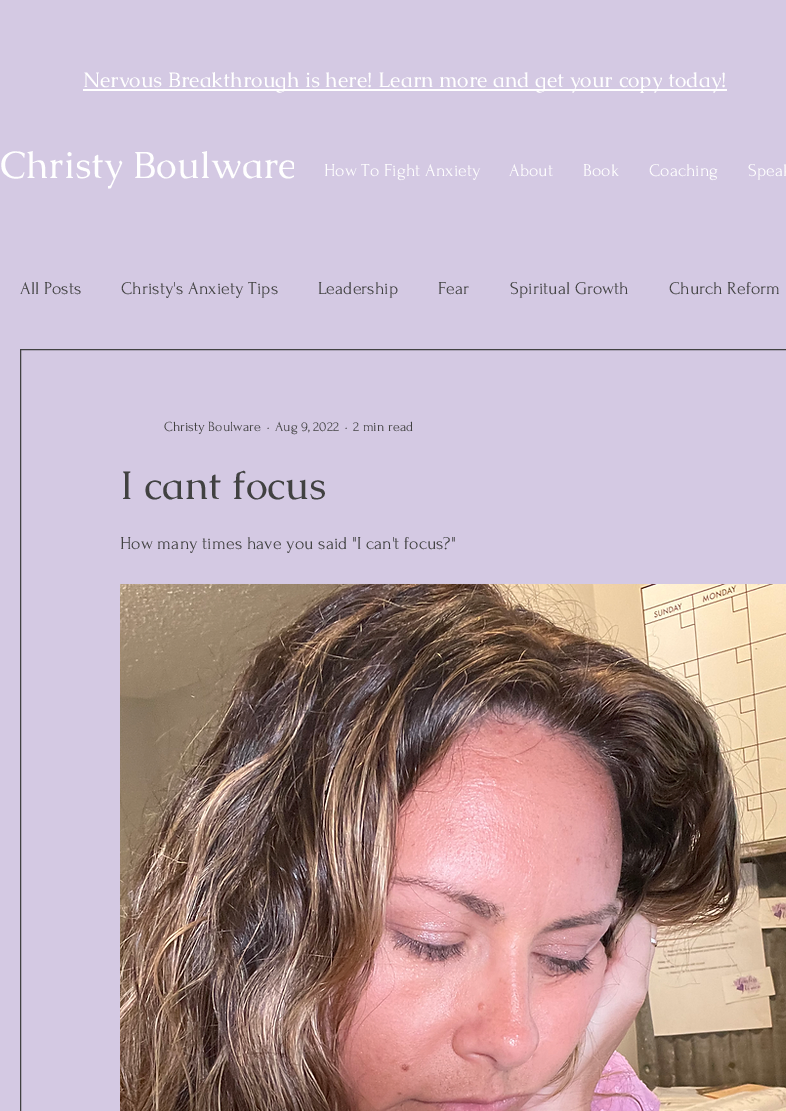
%!PS-Adobe-3.0
%%BoundingBox: 0 0 786 1111
%%LanguageLevel: 3
%%Pages: 1
%%EndComments
%%BeginProlog
/fn { [ exch dup neg 0 0 3 -1 roll 0 0 ] selectfont } def
/tx { moveto show } def
/bx { rectfill } def
/im { 5 dict begin { /h /w /y /x /name } { exch def } forall
  gsave x y translate w h scale
  w h 8 [w 0 0 h 0 0] name (r) file false 3 colorimage grestore end } def
%%EndProlog
%%BeginSetup
<< /PageSize [786 1111] >> setpagedevice
%%EndSetup
%%Page: 1 1
0 1111 translate 1 -1 scale
4 setmiterlimit
0.831 0.788 0.89 setrgbcolor
0 0 786 1111 bx
1 setgray
83 89 644 2 bx
/Caudex-Regular 21 fn
(Nervous Breakthrough is here! Learn more and get your copy today!) 83 87 tx
/Caudex-Regular 38 fn
(Christy Boulware) 0 178 tx
0.831 0.788 0.89 setrgbcolor
294 162 2 15 bx
/Forum-Regular 18 fn
1 setgray
(How To Fight Anxiety) 324 176 tx
(About) 509 176 tx
(Book) 583 176 tx
(Coaching) 649 176 tx
(Speak) 748 176 tx
0.255 setgray
(All Posts) 20 294 tx
(Christy's Anxiety Tips) 121 294 tx
(Leadership) 318 294 tx
(Fear) 438 294 tx
(Spiritual Growth) 510 294 tx
(Church Reform) 669 294 tx
20.5 349.5 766 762 rectstroke
/Forum-Regular 14 fn
(Christy Boulware) 164 431 tx
(·) 267 431 tx
(Aug 9, 2022) 275 431 tx
(·) 345 431 tx
(2 min read) 353 431 tx
/Caudex-Regular 40 fn
(I cant focus) 120 499 tx
/Forum-Regular 18 fn
(How many times have you said "I can't focus?") 120 549 tx
(image0.raw) 120 584 666 527 im
showpage
%%EOF
